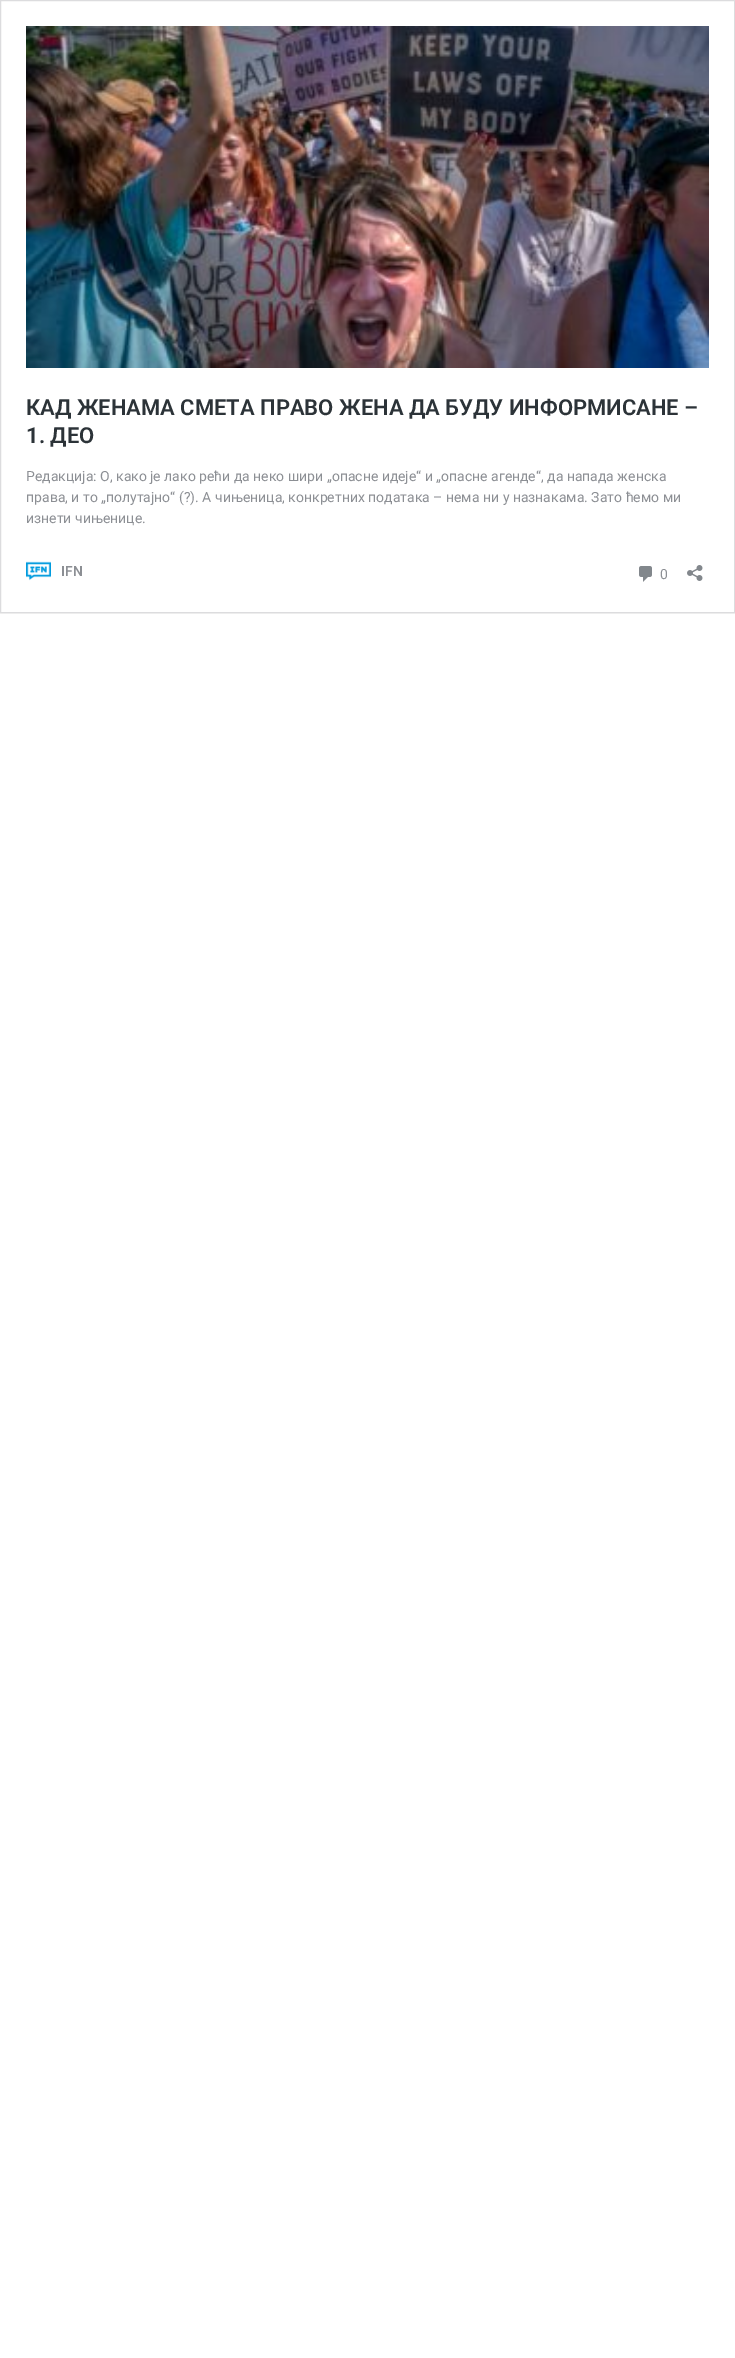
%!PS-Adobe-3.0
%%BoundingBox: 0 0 735 2358
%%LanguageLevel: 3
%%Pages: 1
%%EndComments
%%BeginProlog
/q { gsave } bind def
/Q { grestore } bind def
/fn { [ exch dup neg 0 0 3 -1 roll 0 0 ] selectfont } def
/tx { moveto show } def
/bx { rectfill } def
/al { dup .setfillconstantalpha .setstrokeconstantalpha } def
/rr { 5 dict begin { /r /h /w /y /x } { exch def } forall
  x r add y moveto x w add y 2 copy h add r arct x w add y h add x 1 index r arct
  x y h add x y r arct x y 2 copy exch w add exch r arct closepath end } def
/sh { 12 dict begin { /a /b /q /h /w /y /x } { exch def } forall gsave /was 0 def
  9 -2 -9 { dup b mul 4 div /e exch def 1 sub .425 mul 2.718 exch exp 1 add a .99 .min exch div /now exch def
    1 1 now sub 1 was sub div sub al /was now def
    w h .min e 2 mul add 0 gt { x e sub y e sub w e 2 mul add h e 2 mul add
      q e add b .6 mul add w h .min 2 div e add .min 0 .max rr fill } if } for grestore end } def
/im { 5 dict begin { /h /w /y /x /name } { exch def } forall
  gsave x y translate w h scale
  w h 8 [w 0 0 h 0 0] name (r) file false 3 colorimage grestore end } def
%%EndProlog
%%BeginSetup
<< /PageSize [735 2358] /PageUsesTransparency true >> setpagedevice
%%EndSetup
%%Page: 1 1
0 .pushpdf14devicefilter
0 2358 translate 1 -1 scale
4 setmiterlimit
1 setgray
0 0 735 2358 bx
q
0 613 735 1 rectclip
0 setgray
0 1 735 613 0 0.5 0.05 sh
Q
0.863 0.863 0.871 setrgbcolor
0.5 0.5 734 612 rectstroke
(image0.raw) 26 26 683 342 im
/Roboto-SemiBold 22 fn
0.173 0.2 0.22 setrgbcolor
(КАД ЖЕНАМА СМЕТА ПРАВО ЖЕНА ДА БУДУ ИНФОРМИСАНЕ –) 26 415 tx
(1. ДЕО) 26 443 tx
/Roboto-Regular 14 fn
0.549 0.561 0.58 setrgbcolor
(Редакција: О, како је лако рећи да неко шири „опасне идеје“ и „опасне агенде“, да напада женска) 26 481 tx
(права, и то „полутајно“ \(?\). А чињеница, конкретних података – нема ни у назнакама. Зато ћемо ми) 26 502 tx
(изнети чињенице.) 26 523 tx
(image1.raw) 26 561 25 20 im
/Roboto-SemiBold 14 fn
(IFN) 61 576 tx
(image2.raw) 639 566 13 16 im
/Roboto-Regular 14 fn
(0) 660 579 tx
(image3.raw) 687 565 16 16 im
.poppdf14devicefilter showpage
%%EOF
